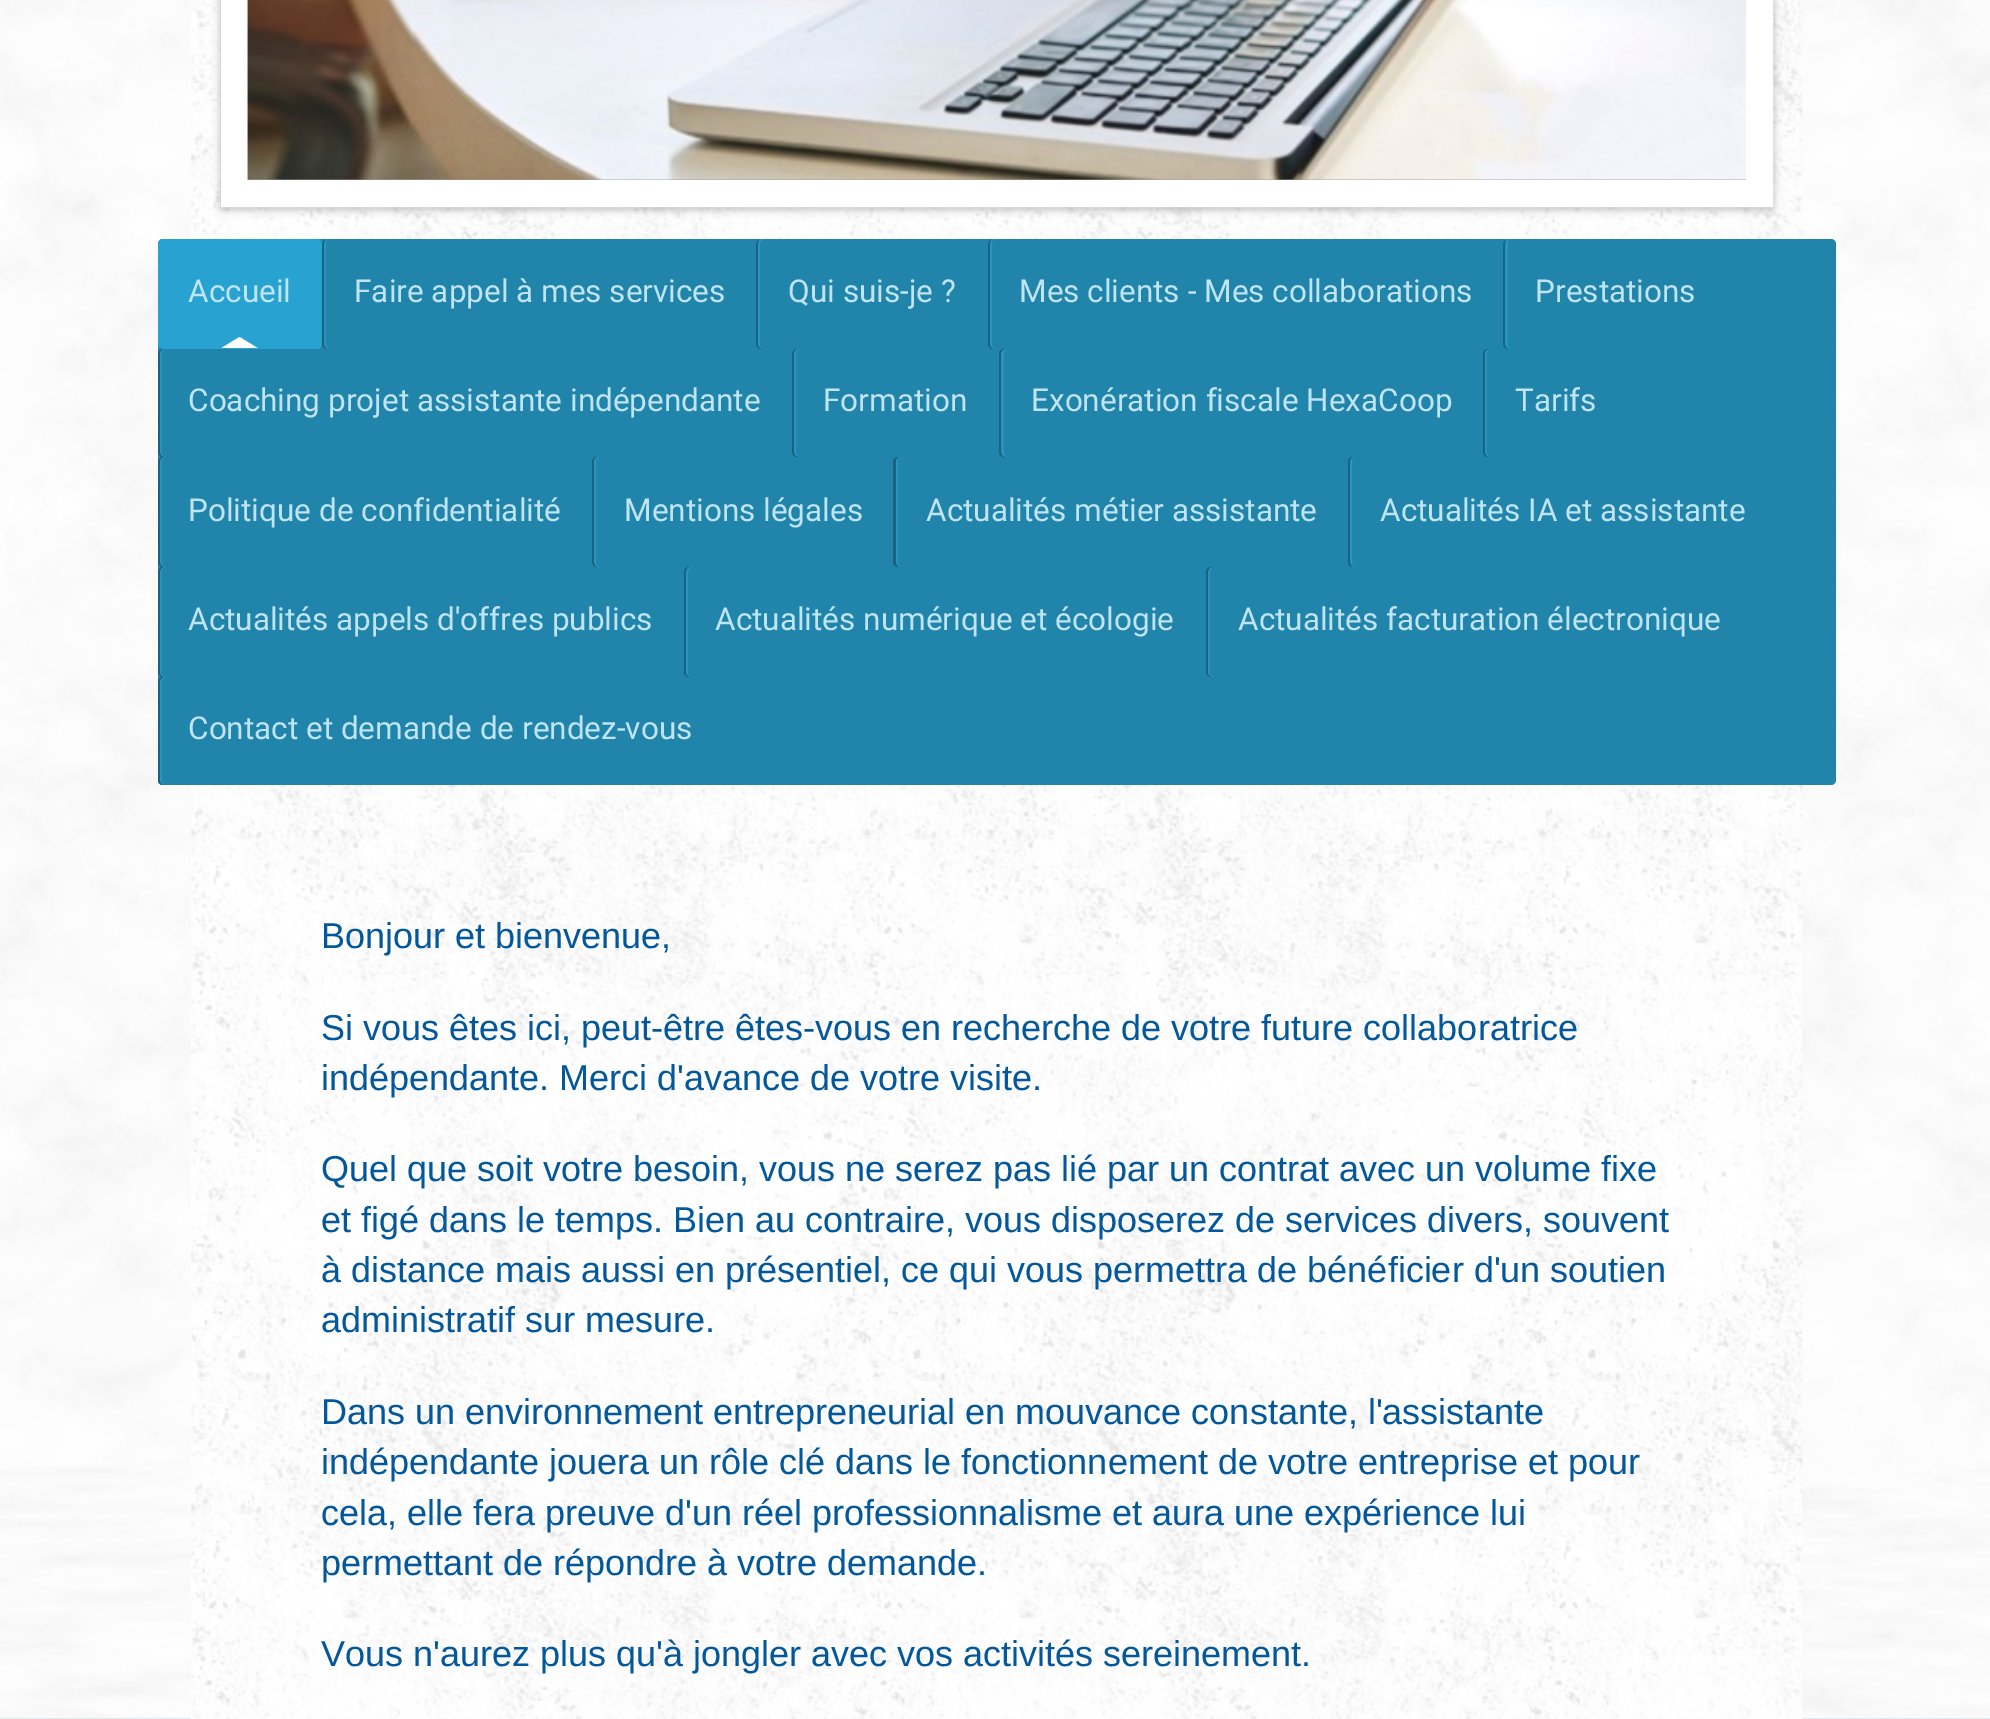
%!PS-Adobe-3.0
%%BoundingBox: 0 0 1990 1719
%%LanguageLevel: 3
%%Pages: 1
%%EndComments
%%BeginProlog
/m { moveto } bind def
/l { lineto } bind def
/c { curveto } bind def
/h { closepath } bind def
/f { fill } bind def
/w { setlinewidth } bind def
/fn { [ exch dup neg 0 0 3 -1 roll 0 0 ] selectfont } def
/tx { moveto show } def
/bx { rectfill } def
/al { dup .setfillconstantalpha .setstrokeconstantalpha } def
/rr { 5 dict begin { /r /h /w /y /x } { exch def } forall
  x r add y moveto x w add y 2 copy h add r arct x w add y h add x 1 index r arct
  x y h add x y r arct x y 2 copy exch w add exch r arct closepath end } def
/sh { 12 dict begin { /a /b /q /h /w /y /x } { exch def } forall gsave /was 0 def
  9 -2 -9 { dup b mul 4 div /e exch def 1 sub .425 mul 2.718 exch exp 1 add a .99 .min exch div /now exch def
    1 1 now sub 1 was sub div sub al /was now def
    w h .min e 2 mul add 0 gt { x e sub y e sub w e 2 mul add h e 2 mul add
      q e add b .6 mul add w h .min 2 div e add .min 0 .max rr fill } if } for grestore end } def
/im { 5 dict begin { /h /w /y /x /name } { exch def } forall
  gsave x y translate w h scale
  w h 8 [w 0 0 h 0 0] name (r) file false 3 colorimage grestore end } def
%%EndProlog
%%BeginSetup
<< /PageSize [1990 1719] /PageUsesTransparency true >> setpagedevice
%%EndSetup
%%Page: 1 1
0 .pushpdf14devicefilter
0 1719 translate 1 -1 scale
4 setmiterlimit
0.729 0.82 0.839 setrgbcolor
0 0 1990 1719 bx
(image0.raw) 0 0 1990 1719 im
1 setgray
191 0 1611 1719 bx
(image1.raw) 191 0 1612 1719 im
0 setgray
221 -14 1552 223 0 4.5 0.3 sh
1 setgray
27 w
234.5 -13.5 1525 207 rectstroke
(image2.raw) 247 0 1 180 im
0.627 setgray
248 179 1498 1 bx
(image3.raw) 247 0 1499 180 im
0.129 0.518 0.671 setrgbcolor
158 239 1678 546 5 rr f
0.157 0.635 0.82 setrgbcolor
158 239 164 110 5 rr f
/Roboto-Regular 31.5 fn
0.749 0.894 0.949 setrgbcolor
(Accueil) 188 302 tx
1 setgray
257.5 348 m 221.5 348 l 239.5 337 l h f
0.145 0.584 0.753 setrgbcolor
327 239 m 324 239 322 241 322 244 c 322 344 l 322 347 324 349 327 349 c 331 349 l 328 349 326 347 326 344 c 326 243 l 326 242 327 240 328 239 c h f
0.098 0.388 0.502 setrgbcolor
326 239 m 324 240 322 242 322 244 c 322 344 l 322 347 324 349 327 349 c 328 349 l 326 349 324 347 324 344 c 324 243 l 324 242 325 240 326 239 c h f
0.749 0.894 0.949 setrgbcolor
(Faire appel à mes services) 354 302 tx
0.145 0.584 0.753 setrgbcolor
761 239 m 758 239 756 241 756 244 c 756 344 l 756 347 758 349 761 349 c 765 349 l 762 349 760 347 760 344 c 760 243 l 763 239 l h f
0.098 0.388 0.502 setrgbcolor
760 239 m 758 240 756 242 756 244 c 756 344 l 756 347 758 349 761 349 c 763 349 l 760 349 758 347 758 344 c 758 243 l 758 242 759 240 760 239 c h f
0.749 0.894 0.949 setrgbcolor
(Qui suis-je ?) 788 302 tx
0.145 0.584 0.753 setrgbcolor
993 239 m 990 239 988 241 988 244 c 988 344 l 988 347 990 349 993 349 c 997 349 l 994 349 992 347 992 344 c 992 243 l 992 242 993 240 994 239 c h f
0.098 0.388 0.502 setrgbcolor
992 239 m 990 240 988 242 988 244 c 988 344 l 988 347 990 349 993 349 c 994 349 l 992 349 990 347 990 344 c 990 243 l 990 242 991 240 992 239 c h f
0.749 0.894 0.949 setrgbcolor
(Mes clients - Mes collaborations) 1019 302 tx
0.145 0.584 0.753 setrgbcolor
1508 239 m 1505 239 1503 241 1503 244 c 1503 344 l 1503 347 1505 349 1508 349 c 1512 349 l 1510 349 1508 347 1508 344 c 1508 243 l 1508 242 1509 240 1510 239 c h f
0.098 0.388 0.502 setrgbcolor
1507 239 m 1505 240 1503 242 1503 244 c 1503 344 l 1503 347 1505 349 1508 349 c 1510 349 l 1507 349 1505 347 1505 344 c 1505 243 l 1505 242 1506 240 1507 239 c h f
0.749 0.894 0.949 setrgbcolor
(Prestations) 1535 302 tx
0.145 0.584 0.753 setrgbcolor
163 349 m 160 349 158 351 158 354 c 158 452 l 158 455 160 457 163 457 c 166 457 l 164 457 162 455 162 452 c 162 353 l 162 351 164 349 166 349 c h f
0.098 0.388 0.502 setrgbcolor
163 349 m 160 349 158 351 158 354 c 158 452 l 158 455 160 457 163 457 c 164 457 l 162 457 160 455 160 452 c 160 353 l 160 351 162 349 164 349 c h f
0.749 0.894 0.949 setrgbcolor
(Coaching projet assistante indépendante) 188 411 tx
0.145 0.584 0.753 setrgbcolor
797 349 m 794 349 792 351 792 354 c 792 452 l 792 455 794 457 797 457 c 801 457 l 799 457 796 455 796 452 c 796 353 l 796 351 799 349 801 349 c h f
0.098 0.388 0.502 setrgbcolor
797 349 m 794 349 792 351 792 354 c 792 452 l 792 455 794 457 797 457 c 799 457 l 796 457 794 455 794 452 c 794 353 l 794 351 796 349 799 349 c h f
0.749 0.894 0.949 setrgbcolor
(Formation) 823 411 tx
0.145 0.584 0.753 setrgbcolor
1004 349 m 1001 349 999 351 999 354 c 999 452 l 999 455 1001 457 1004 457 c 1008 457 l 1006 457 1004 455 1004 452 c 1004 353 l 1004 351 1006 349 1008 349 c h f
0.098 0.388 0.502 setrgbcolor
1004 349 m 1001 349 999 351 999 354 c 999 452 l 999 455 1001 457 1004 457 c 1006 457 l 1003 457 1001 455 1001 452 c 1001 353 l 1001 351 1003 349 1006 349 c h f
0.749 0.894 0.949 setrgbcolor
(Exonération fiscale HexaCoop) 1031 411 tx
0.145 0.584 0.753 setrgbcolor
1488 349 m 1485 349 1483 351 1483 354 c 1483 452 l 1483 455 1485 457 1488 457 c 1492 457 l 1489 457 1487 455 1487 452 c 1487 353 l 1487 351 1489 349 1492 349 c h f
0.098 0.388 0.502 setrgbcolor
1488 349 m 1485 349 1483 351 1483 354 c 1483 452 l 1483 455 1485 457 1488 457 c 1490 457 l 1487 457 1485 455 1485 452 c 1485 353 l 1485 351 1487 349 1490 349 c h f
0.749 0.894 0.949 setrgbcolor
(Tarifs) 1515 411 tx
0.145 0.584 0.753 setrgbcolor
163 457 m 160 457 158 459 158 462 c 158 562 l 158 565 160 567 163 567 c 166 567 l 164 567 162 565 162 562 c 162 461 l 162 459 164 457 166 457 c h f
0.098 0.388 0.502 setrgbcolor
163 457 m 160 457 158 459 158 462 c 158 562 l 158 565 160 567 163 567 c 164 567 l 162 567 160 565 160 562 c 160 461 l 160 459 162 457 164 457 c h f
0.749 0.894 0.949 setrgbcolor
(Politique de confidentialité) 188 521 tx
0.145 0.584 0.753 setrgbcolor
597 457 m 594 457 592 459 592 462 c 592 562 l 592 565 594 567 597 567 c 601 567 l 598 567 596 565 596 562 c 596 461 l 596 459 598 457 601 457 c h f
0.098 0.388 0.502 setrgbcolor
597 457 m 594 457 592 459 592 462 c 592 562 l 592 565 594 567 597 567 c 598 567 l 596 567 594 565 594 562 c 594 461 l 594 459 596 457 598 457 c h f
0.749 0.894 0.949 setrgbcolor
(Mentions légales) 624 521 tx
0.145 0.584 0.753 setrgbcolor
898 457 m 895 457 893 459 893 462 c 893 562 l 893 565 895 567 898 567 c 902 567 l 900 567 898 565 898 562 c 898 461 l 898 459 900 457 902 457 c h f
0.098 0.388 0.502 setrgbcolor
898 457 m 895 457 893 459 893 462 c 893 562 l 893 565 895 567 898 567 c 900 567 l 898 567 896 565 896 562 c 896 461 l 896 459 898 457 900 457 c h f
0.749 0.894 0.949 setrgbcolor
(Actualités métier assistante) 926 521 tx
0.145 0.584 0.753 setrgbcolor
1353 457 m 1350 457 1348 459 1348 462 c 1348 562 l 1348 565 1350 567 1353 567 c 1357 567 l 1354 567 1352 565 1352 562 c 1352 461 l 1352 459 1354 457 1357 457 c h f
0.098 0.388 0.502 setrgbcolor
1353 457 m 1350 457 1348 459 1348 462 c 1348 562 l 1348 565 1350 567 1353 567 c 1354 567 l 1352 567 1350 565 1350 562 c 1350 461 l 1350 459 1352 457 1354 457 c h f
0.749 0.894 0.949 setrgbcolor
(Actualités IA et assistante) 1380 521 tx
0.145 0.584 0.753 setrgbcolor
163 567 m 160 567 158 569 158 572 c 158 672 l 158 675 160 677 163 677 c 166 677 l 164 677 162 675 162 673 c 162 572 l 162 569 164 567 166 567 c h f
0.098 0.388 0.502 setrgbcolor
163 567 m 160 567 158 569 158 572 c 158 672 l 158 675 160 677 163 677 c 164 677 l 162 677 160 675 160 673 c 160 572 l 160 569 162 567 164 567 c h f
0.749 0.894 0.949 setrgbcolor
(Actualités appels d'offres publics) 188 630 tx
0.145 0.584 0.753 setrgbcolor
689 567 m 686 567 684 569 684 572 c 684 672 l 684 675 686 677 689 677 c 693 677 l 691 677 688 675 688 673 c 688 572 l 688 569 691 567 693 567 c h f
0.098 0.388 0.502 setrgbcolor
689 567 m 686 567 684 569 684 572 c 684 672 l 684 675 686 677 689 677 c 691 677 l 688 677 686 675 686 673 c 686 572 l 686 569 688 567 691 567 c h f
0.749 0.894 0.949 setrgbcolor
(Actualités numérique et écologie) 715 630 tx
0.145 0.584 0.753 setrgbcolor
1211 567 m 1208 567 1206 569 1206 572 c 1206 672 l 1206 675 1208 677 1211 677 c 1215 677 l 1213 677 1210 675 1210 673 c 1210 572 l 1210 569 1213 567 1215 567 c h f
0.098 0.388 0.502 setrgbcolor
1211 567 m 1208 567 1206 569 1206 572 c 1206 672 l 1206 675 1208 677 1211 677 c 1213 677 l 1210 677 1208 675 1208 673 c 1208 572 l 1208 569 1210 567 1213 567 c h f
0.749 0.894 0.949 setrgbcolor
(Actualités facturation électronique) 1238 630 tx
0.145 0.584 0.753 setrgbcolor
163 677 m 160 677 158 679 158 682 c 158 780 l 158 783 160 785 163 785 c 166 785 l 164 785 162 783 162 781 c 162 682 l 162 679 164 677 166 677 c h f
0.098 0.388 0.502 setrgbcolor
163 677 m 160 677 158 679 158 682 c 158 780 l 158 783 160 785 163 785 c 164 785 l 162 785 160 783 160 781 c 160 682 l 160 679 162 677 164 677 c h f
0.749 0.894 0.949 setrgbcolor
(Contact et demande de rendez-vous) 188 739 tx
/Arimo-Regular 36 fn
0.012 0.341 0.608 setrgbcolor
(Bonjour et bienvenue,) 321 948 tx
(Si vous êtes ici, peut-être êtes-vous en recherche de votre future collaboratrice) 321 1040 tx
(indépendante. Merci d'avance de votre visite.) 321 1090 tx
(Quel que soit votre besoin, v) 321 1181 tx
/LiberationSans-Regular 36 fn
(ous ne serez pas lié par un contrat avec un volume fixe) 777 1181 tx
(et figé dans le temps.) 321 1232 tx
/Arimo-Regular 36 fn
(Bien au contraire, vous disposerez de services divers, souvent) 673 1232 tx
(à distance mais aussi en présentiel, ce qui vous permettra de bénéficier d'un soutien) 321 1282 tx
(administratif sur mesure.) 321 1332 tx
(Dans un environnement entrepreneurial en mouvance constante, l'assistante) 321 1424 tx
(indépendante jouera un rôle clé dans le fonctionnement de votre entreprise et pour) 321 1474 tx
(cela, elle fera preuve d'un réel professionnalisme et aura une expérience lui) 321 1525 tx
(permettant de répondre à votre demande.) 321 1575 tx
(Vous n'aurez plus qu'à jongler avec vos activités sereinement.) 321 1666 tx
.poppdf14devicefilter showpage
%%EOF
